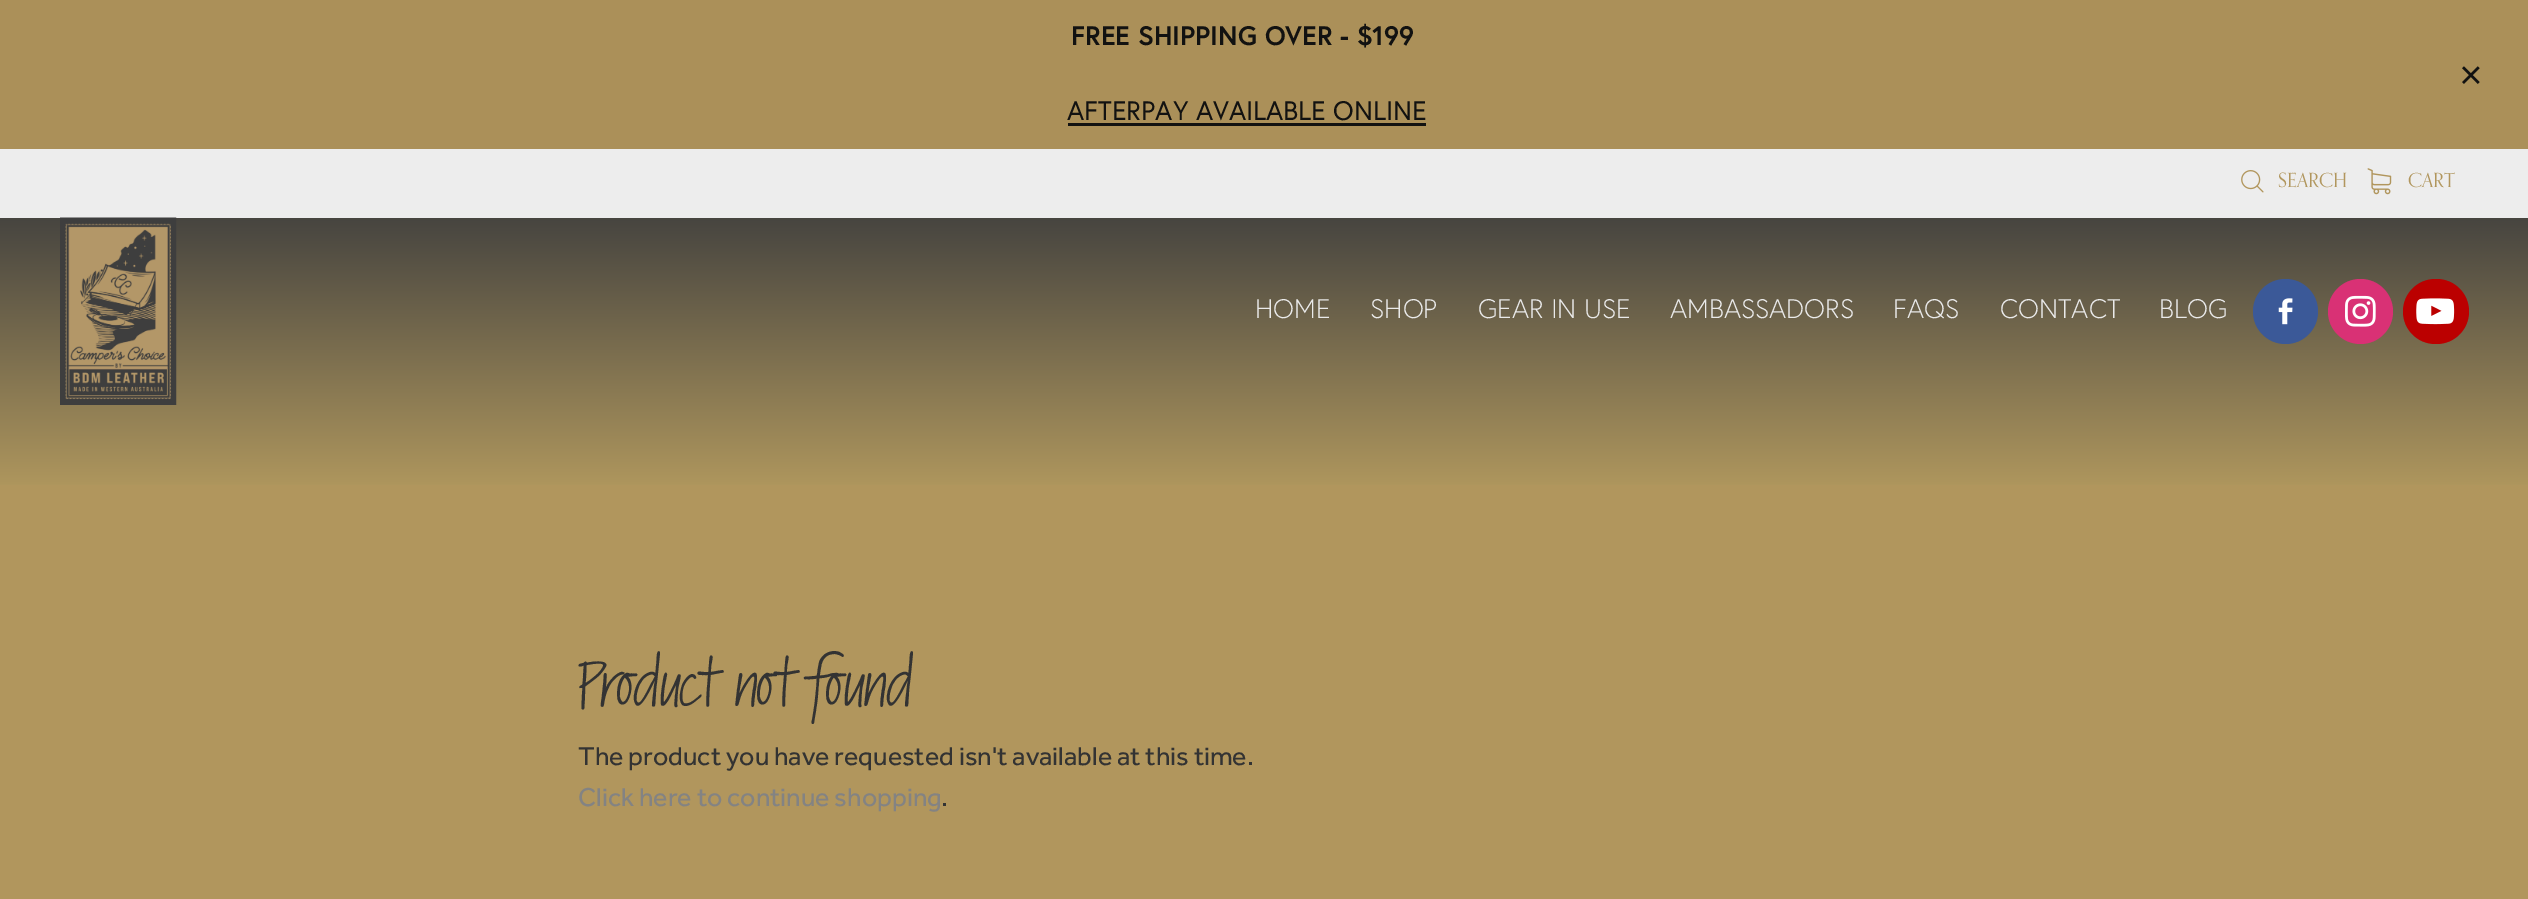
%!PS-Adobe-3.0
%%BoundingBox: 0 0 2528 899
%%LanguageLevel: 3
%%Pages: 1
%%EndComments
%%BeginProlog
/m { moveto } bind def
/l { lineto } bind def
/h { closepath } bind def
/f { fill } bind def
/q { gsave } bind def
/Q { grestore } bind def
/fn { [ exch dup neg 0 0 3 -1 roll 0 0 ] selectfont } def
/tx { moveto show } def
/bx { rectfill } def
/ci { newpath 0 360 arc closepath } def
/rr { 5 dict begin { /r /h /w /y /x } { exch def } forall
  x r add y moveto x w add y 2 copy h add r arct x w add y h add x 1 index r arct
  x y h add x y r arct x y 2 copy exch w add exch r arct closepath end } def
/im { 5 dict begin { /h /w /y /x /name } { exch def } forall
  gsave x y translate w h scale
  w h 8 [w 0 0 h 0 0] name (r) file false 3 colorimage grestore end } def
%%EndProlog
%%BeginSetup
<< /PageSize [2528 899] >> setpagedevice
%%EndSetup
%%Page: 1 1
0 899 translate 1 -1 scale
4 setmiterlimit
0.694 0.588 0.365 setrgbcolor
0 0 2528 899 bx
0.671 0.565 0.349 setrgbcolor
0 0 2528 149 bx
/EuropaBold-Bold 26.75 fn
0.071 0.071 0.067 setrgbcolor
(FREE SHIPPING OVER - $199) 1071 45 tx
/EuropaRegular-Regular 26.75 fn
(AFTERPAY AVAILABLE ONLINE) 1067 120 tx
1068 123 358 3 bx
(image0.raw) 2462 66 18 18 im
0.929 setgray
0 149 2528 69 bx
(image1.raw) 2241 170 23 23 im
/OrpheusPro-Regular 19.5 fn
0.694 0.588 0.365 setrgbcolor
(SEARCH) 2278 187 tx
(image2.raw) 2367 168 25 27 im
(CART) 2408 187 tx
q 0 218 m 2528 218 l 2528 485 l 0 485 l h clip newpath
<< /ShadingType 2 /ColorSpace /DeviceRGB /Coords [1264 217 1264 590] /Extend [true true] /Function << /FunctionType 3 /Domain [0 1] /Functions [<< /FunctionType 2 /Domain [0 1] /C0 [0.278 0.271 0.251] /C1 [0.69 0.592 0.365] /N 1 >> << /FunctionType 2 /Domain [0 1] /C0 [0.69 0.592 0.365] /C1 [0.69 0.592 0.365] /N 1 >>] /Bounds [0.73] /Encode [0 1 0 1] >> >> shfill Q
(image3.raw) 60 217 117 188 im
/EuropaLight-Light 26.75 fn
0.918 setgray
(HOME) 1255 318 tx
(SHOP) 1370 318 tx
(GEAR IN USE) 1478 318 tx
(AMBASSADORS) 1670 318 tx
(FAQS) 1893 318 tx
(CONTACT) 2000 318 tx
(BLOG) 2159 318 tx
0.231 0.349 0.596 setrgbcolor
2285.5 311.5 32.5 ci f
(image4.raw) 2278 298 15 27 im
0.851 0.192 0.459 setrgbcolor
2360.5 311.5 32.5 ci f
(image5.raw) 2345 295 31 32 im
0.733 0 0 setrgbcolor
2403 279 66 65 32.5 rr f
(image6.raw) 2416 298 39 27 im
/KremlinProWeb-Regular 62.5 fn
0.2 setgray
(Product not found) 578 707 tx
/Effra-Regular 26.75 fn
(The product you have requested isn't available at this time.) 578 765 tx
0.514 setgray
(Click here to continue shopping) 578 806 tx
0.2 setgray
(.) 941 806 tx
showpage
%%EOF
